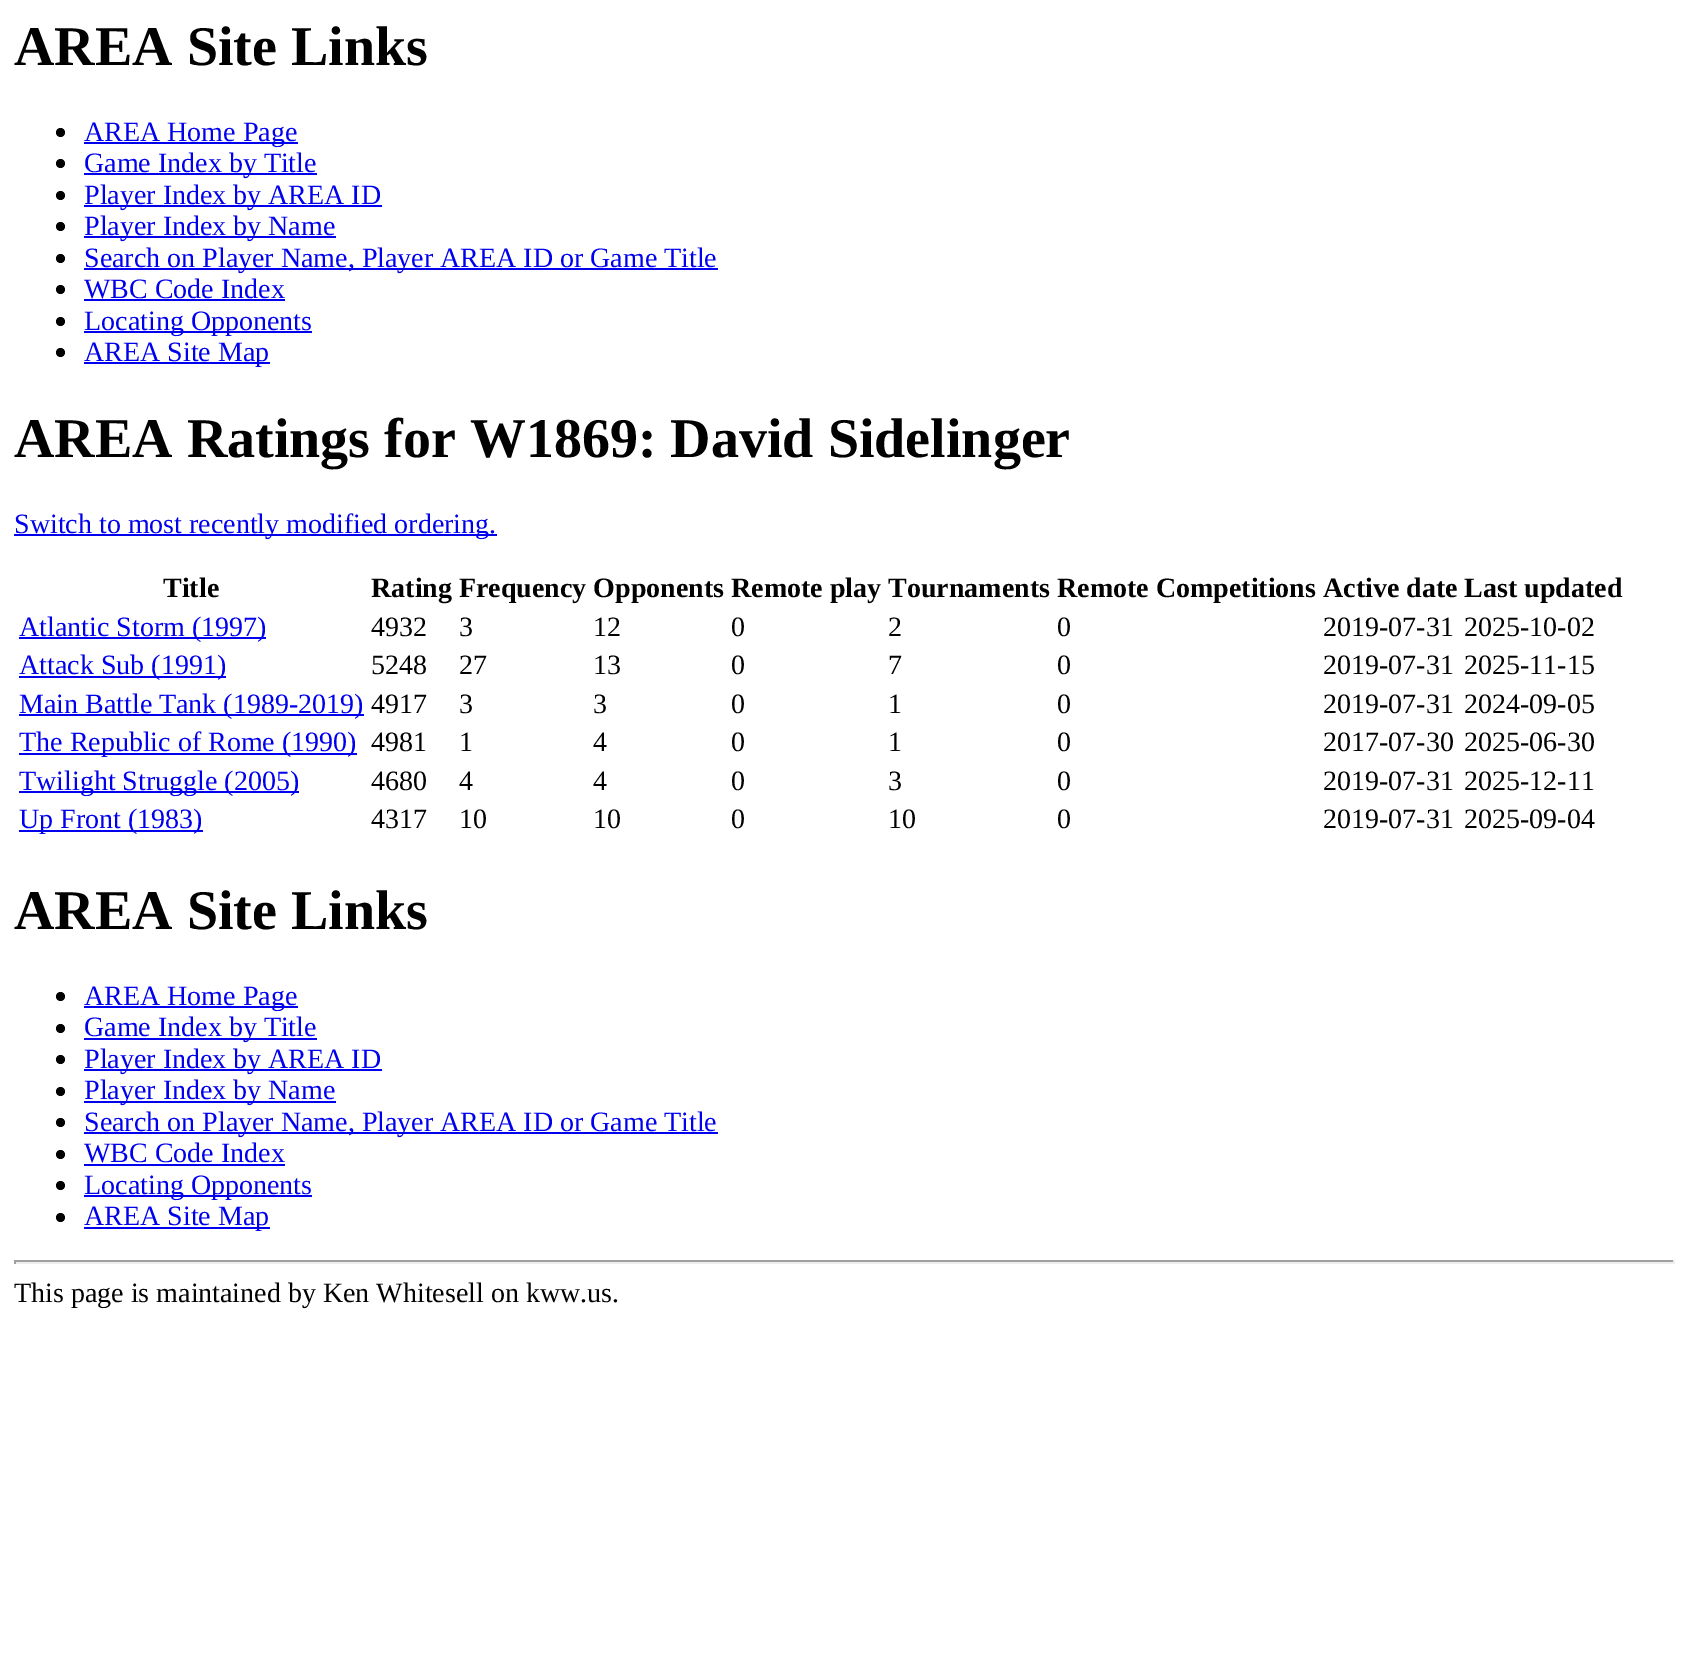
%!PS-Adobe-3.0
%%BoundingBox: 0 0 1688 1657
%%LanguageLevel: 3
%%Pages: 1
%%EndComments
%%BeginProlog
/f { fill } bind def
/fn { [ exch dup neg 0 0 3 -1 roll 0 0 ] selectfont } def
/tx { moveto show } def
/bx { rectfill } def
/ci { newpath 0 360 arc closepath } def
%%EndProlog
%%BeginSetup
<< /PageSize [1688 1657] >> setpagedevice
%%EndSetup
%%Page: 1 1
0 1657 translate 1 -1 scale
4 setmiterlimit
1 setgray
0 0 1688 1657 bx
/LiberationSerif-Bold 56 fn
0 setgray
(AREA Site Links) 14 65 tx
60.5 132.5 4.5 ci f
0 0 0.933 setrgbcolor
84 142 214 2 bx
/LiberationSerif-Regular 28 fn
(AREA Home Page) 84 141 tx
0 setgray
60.5 163.5 4.5 ci f
0 0 0.933 setrgbcolor
84 173 233 2 bx
(Game Index by Title) 84 172 tx
0 setgray
60.5 195.5 4.5 ci f
0 0 0.933 setrgbcolor
84 205 298 2 bx
(Player Index by AREA ID) 84 204 tx
0 setgray
60.5 226.5 4.5 ci f
0 0 0.933 setrgbcolor
84 236 252 2 bx
(Player Index by Name) 84 235 tx
0 setgray
60.5 258.5 4.5 ci f
0 0 0.933 setrgbcolor
84 268 634 2 bx
(Search on Player Name, Player AREA ID or Game Title) 84 267 tx
0 setgray
60.5 289.5 4.5 ci f
0 0 0.933 setrgbcolor
(WBC Code Index) 84 298 tx
84 299 201 2 bx
0 setgray
60.5 321.5 4.5 ci f
0 0 0.933 setrgbcolor
84 331 228 2 bx
(Locating Opponents) 84 330 tx
0 setgray
60.5 352.5 4.5 ci f
0 0 0.933 setrgbcolor
84 362 186 2 bx
(AREA Site Map) 84 361 tx
/LiberationSerif-Bold 56 fn
0 setgray
(AREA Ratings for W1869: David Sidelinger) 14 457 tx
0 0 0.933 setrgbcolor
14 534 483 2 bx
/LiberationSerif-Regular 28 fn
(Switch to most recently modified ordering.) 14 533 tx
/LiberationSerif-Bold 28 fn
0 setgray
(Title) 163 597 tx
(Rating Frequency Opponents Remote play Tournaments Remote Competitions Active date Last updated) 371 597 tx
0 0 0.933 setrgbcolor
19 637 247 2 bx
/LiberationSerif-Regular 28 fn
(Atlantic Storm \(1997\)) 19 636 tx
0 setgray
(4932) 371 636 tx
(3) 459 636 tx
(12) 593 636 tx
(0) 731 636 tx
(2) 888 636 tx
(0) 1057 636 tx
(2019-07-31) 1323 636 tx
(2025-10-02) 1464 636 tx
0 0 0.933 setrgbcolor
19 676 207 2 bx
(Attack Sub \(1991\)) 19 674 tx
0 setgray
(5248) 371 674 tx
(27) 459 674 tx
(13) 593 674 tx
(0) 731 674 tx
(7) 888 674 tx
(0) 1057 674 tx
(2019-07-31) 1323 674 tx
(2025-11-15) 1464 674 tx
0 0 0.933 setrgbcolor
19 714 345 2 bx
(Main Battle Tank \(1989-2019\)) 19 713 tx
0 setgray
(4917) 371 713 tx
(3) 459 713 tx
(3) 593 713 tx
(0) 731 713 tx
(1) 888 713 tx
(0) 1057 713 tx
(2019-07-31) 1323 713 tx
(2024-09-05) 1464 713 tx
0 0 0.933 setrgbcolor
19 753 338 2 bx
(The Republic of Rome \(1990\)) 19 751 tx
0 setgray
(4981) 371 751 tx
(1) 459 751 tx
(4) 593 751 tx
(0) 731 751 tx
(1) 888 751 tx
(0) 1057 751 tx
(2017-07-30) 1323 751 tx
(2025-06-30) 1464 751 tx
0 0 0.933 setrgbcolor
19 791 280 2 bx
(Twilight Struggle \(2005\)) 19 790 tx
0 setgray
(4680) 371 790 tx
(4) 459 790 tx
(4) 593 790 tx
(0) 731 790 tx
(3) 888 790 tx
(0) 1057 790 tx
(2019-07-31) 1323 790 tx
(2025-12-11) 1464 790 tx
0 0 0.933 setrgbcolor
19 830 184 2 bx
(Up Front \(1983\)) 19 828 tx
0 setgray
(4317) 371 828 tx
(10) 459 828 tx
(10) 593 828 tx
(0) 731 828 tx
(10) 888 828 tx
(0) 1057 828 tx
(2019-07-31) 1323 828 tx
(2025-09-04) 1464 828 tx
/LiberationSerif-Bold 56 fn
(AREA Site Links) 14 929 tx
60.5 996.5 4.5 ci f
0 0 0.933 setrgbcolor
84 1006 214 2 bx
/LiberationSerif-Regular 28 fn
(AREA Home Page) 84 1005 tx
0 setgray
60.5 1028.5 4.5 ci f
0 0 0.933 setrgbcolor
84 1038 233 2 bx
(Game Index by Title) 84 1036 tx
0 setgray
60.5 1059.5 4.5 ci f
0 0 0.933 setrgbcolor
84 1069 298 2 bx
(Player Index by AREA ID) 84 1068 tx
0 setgray
60.5 1091.5 4.5 ci f
0 0 0.933 setrgbcolor
84 1101 252 2 bx
(Player Index by Name) 84 1099 tx
0 setgray
60.5 1122.5 4.5 ci f
0 0 0.933 setrgbcolor
84 1132 634 2 bx
(Search on Player Name, Player AREA ID or Game Title) 84 1131 tx
0 setgray
60.5 1154.5 4.5 ci f
0 0 0.933 setrgbcolor
(WBC Code Index) 84 1162 tx
84 1164 201 2 bx
0 setgray
60.5 1185.5 4.5 ci f
0 0 0.933 setrgbcolor
84 1195 228 2 bx
(Locating Opponents) 84 1194 tx
0 setgray
60.5 1217.5 4.5 ci f
0 0 0.933 setrgbcolor
84 1227 186 2 bx
(AREA Site Map) 84 1225 tx
0.624 setgray
14 1260 1661 2 bx
0.933 setgray
1673 1260 2 4 bx
14 1262 1661 2 bx
0.624 setgray
14 1260 2 4 bx
0 setgray
(This page is maintained by Ken Whitesell on kww.us.) 14 1302 tx
showpage
%%EOF
